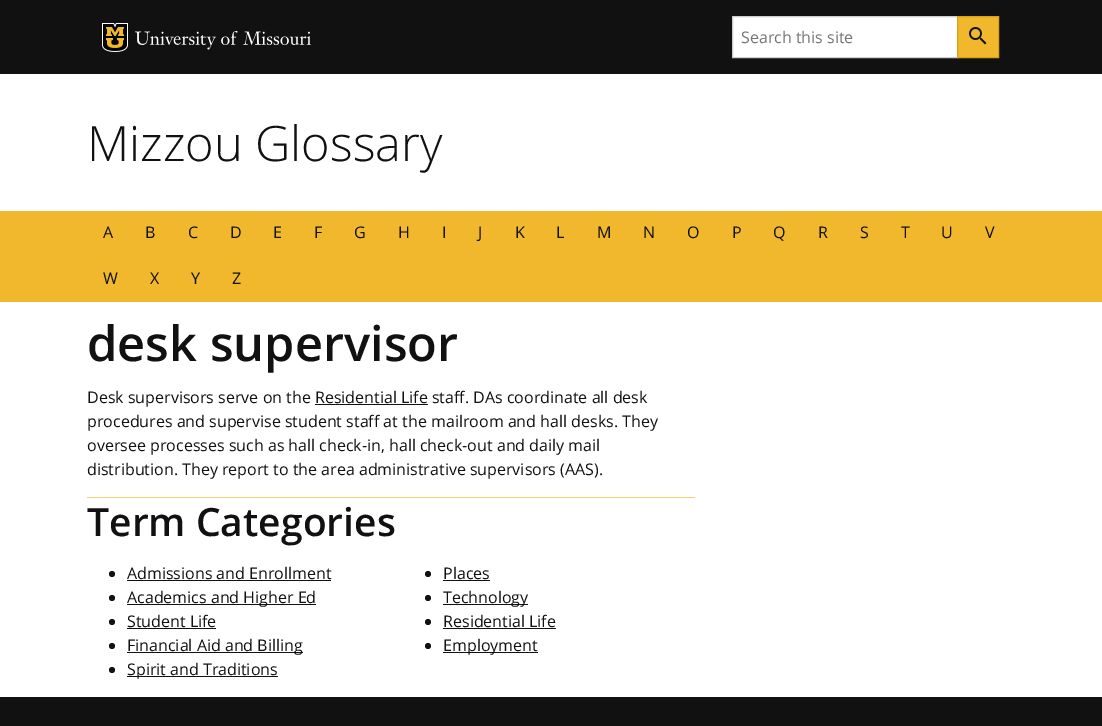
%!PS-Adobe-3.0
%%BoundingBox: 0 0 1102 726
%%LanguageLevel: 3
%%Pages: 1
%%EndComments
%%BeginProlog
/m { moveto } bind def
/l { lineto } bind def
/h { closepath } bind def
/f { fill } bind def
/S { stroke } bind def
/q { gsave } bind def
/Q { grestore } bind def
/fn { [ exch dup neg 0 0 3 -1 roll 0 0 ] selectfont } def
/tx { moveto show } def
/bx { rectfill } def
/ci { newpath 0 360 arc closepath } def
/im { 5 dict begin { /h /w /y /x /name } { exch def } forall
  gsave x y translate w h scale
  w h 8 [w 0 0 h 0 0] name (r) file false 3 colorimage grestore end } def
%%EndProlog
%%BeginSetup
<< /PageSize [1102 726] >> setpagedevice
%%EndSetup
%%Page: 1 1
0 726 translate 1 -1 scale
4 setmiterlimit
1 setgray
0 0 1102 726 bx
0.067 setgray
0 0 1102 74 bx
(image0.raw) 102 23 26 29 im
(image1.raw) 135 31 176 19 im
1 setgray
732.5 16.5 m 957.5 16.5 l 957.5 57.5 l 732.5 57.5 l h q f Q
0.8 setgray
S
/OpenSans-Regular 16 fn
0.459 setgray
(Search this site) 741 43 tx
0.945 0.722 0.176 setrgbcolor
957.5 16.5 m 998.5 16.5 l 998.5 57.5 l 957.5 57.5 l h q f Q
0.863 0.631 0.059 setrgbcolor
S
(image2.raw) 969 27 18 18 im
/OpenSans-Light 48.75 fn
0.067 setgray
(Mizzou Glossary) 87 161 tx
0.945 0.722 0.176 setrgbcolor
0 211 1102 91 bx
/OpenSans-Regular 16 fn
0.067 setgray
(A) 103 238 tx
(B) 145 238 tx
(C) 188 238 tx
(D) 230 238 tx
(E) 273 238 tx
(F) 314 238 tx
(G) 354 238 tx
(H) 398 238 tx
(I) 442 238 tx
(J) 478 238 tx
(K) 515 238 tx
(L) 556 238 tx
(M) 597 238 tx
(N) 643 238 tx
(O) 687 238 tx
(P) 732 238 tx
(Q) 773 238 tx
(R) 818 238 tx
(S) 860 238 tx
(T) 901 238 tx
(U) 941 238 tx
(V) 985 238 tx
(W) 103 284 tx
(X) 150 284 tx
(Y) 191 284 tx
(Z) 232 284 tx
/OpenSans-SemiBold 48.75 fn
(desk supervisor) 87 361 tx
/OpenSans-Regular 16 fn
(Desk supervisors serve on the Residential Life staff. DAs coordinate all desk) 87 403 tx
315 404 113 1 bx
(procedures and supervise student staff at the mailroom and hall desks. They) 87 427 tx
(oversee processes such as hall check-in, hall check-out and daily mail) 87 451 tx
(distribution. They report to the area administrative supervisors \(AAS\).) 87 475 tx
0.965 0.816 0.459 setrgbcolor
87 497 608 1 bx
/OpenSans-SemiBold 39 fn
0.067 setgray
(Term Categories) 87 536 tx
112 574 3 ci f
/OpenSans-Regular 16 fn
(Admissions and Enrollment) 127 579 tx
127 580 204 1 bx
112 598 3 ci f
127 604 189 1 bx
(Academics and Higher Ed) 127 603 tx
112 622 3 ci f
(Student Life) 127 627 tx
127 628 89 1 bx
112 646 3 ci f
127 652 176 1 bx
(Financial Aid and Billing) 127 651 tx
112 670 3 ci f
127 676 151 1 bx
(Spirit and Traditions) 127 675 tx
428 574 3 ci f
(Places) 443 579 tx
443 580 47 1 bx
428 598 3 ci f
443 604 85 1 bx
(Technology) 443 603 tx
428 622 3 ci f
(Residential Life) 443 627 tx
443 628 113 1 bx
428 646 3 ci f
443 652 95 1 bx
(Employment) 443 651 tx
0 697 1102 29 bx
showpage
%%EOF
